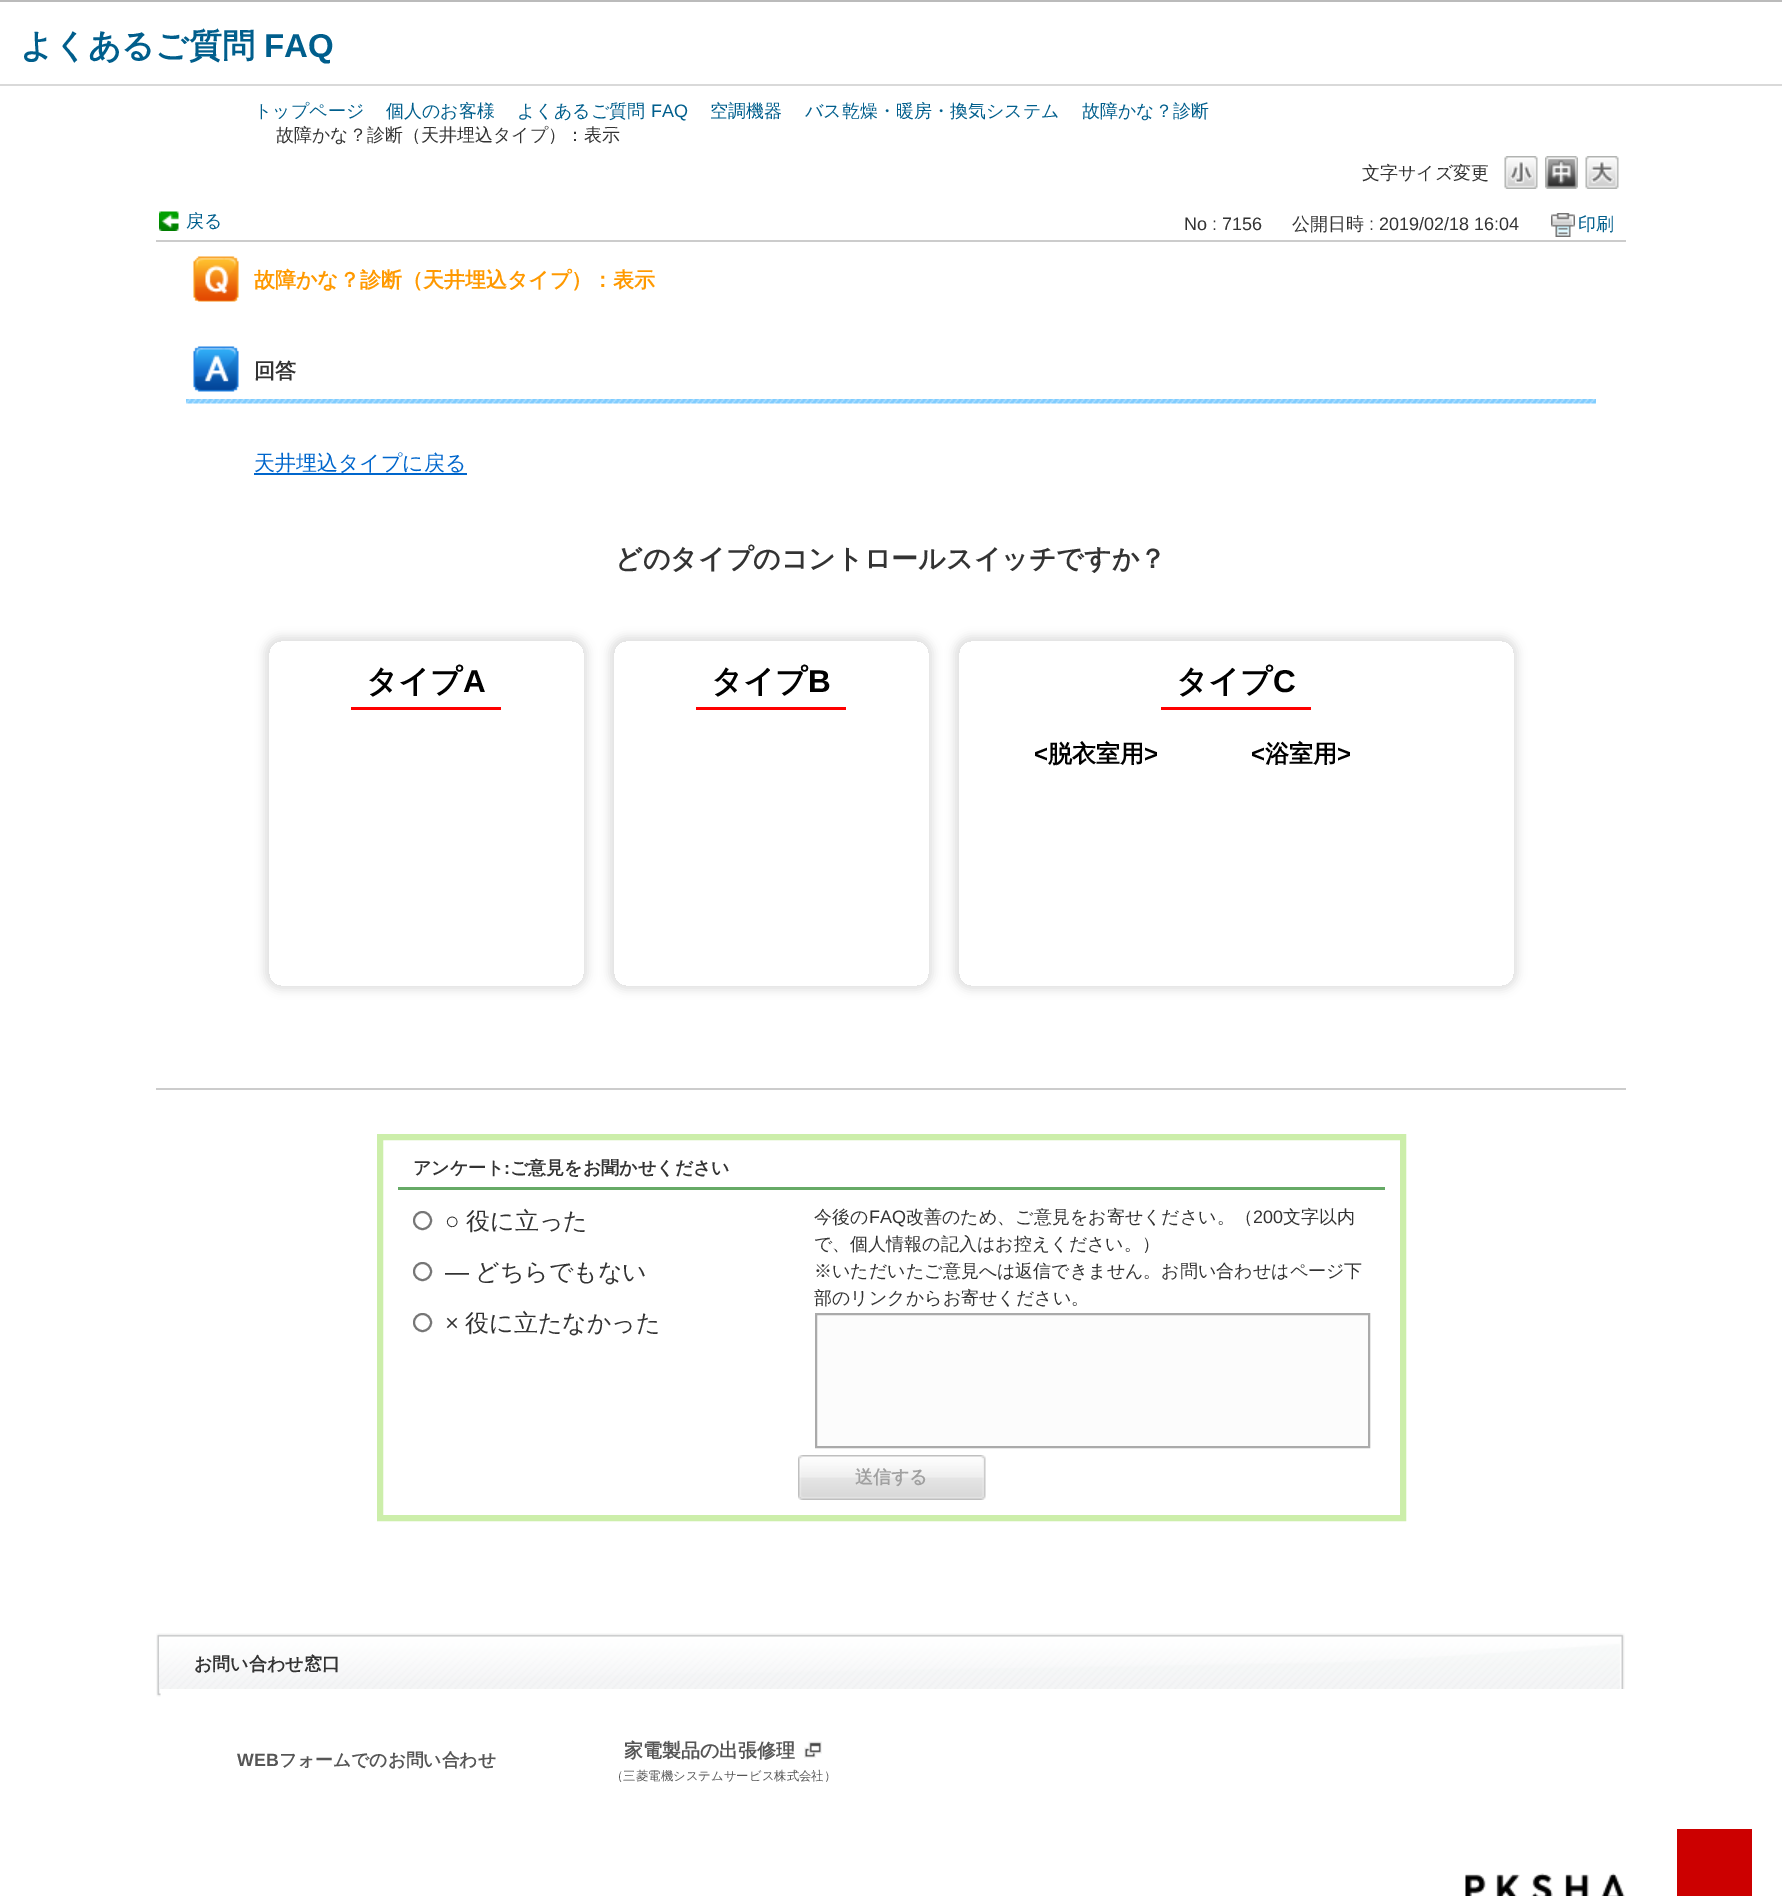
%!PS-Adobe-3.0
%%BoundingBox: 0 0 1782 1896
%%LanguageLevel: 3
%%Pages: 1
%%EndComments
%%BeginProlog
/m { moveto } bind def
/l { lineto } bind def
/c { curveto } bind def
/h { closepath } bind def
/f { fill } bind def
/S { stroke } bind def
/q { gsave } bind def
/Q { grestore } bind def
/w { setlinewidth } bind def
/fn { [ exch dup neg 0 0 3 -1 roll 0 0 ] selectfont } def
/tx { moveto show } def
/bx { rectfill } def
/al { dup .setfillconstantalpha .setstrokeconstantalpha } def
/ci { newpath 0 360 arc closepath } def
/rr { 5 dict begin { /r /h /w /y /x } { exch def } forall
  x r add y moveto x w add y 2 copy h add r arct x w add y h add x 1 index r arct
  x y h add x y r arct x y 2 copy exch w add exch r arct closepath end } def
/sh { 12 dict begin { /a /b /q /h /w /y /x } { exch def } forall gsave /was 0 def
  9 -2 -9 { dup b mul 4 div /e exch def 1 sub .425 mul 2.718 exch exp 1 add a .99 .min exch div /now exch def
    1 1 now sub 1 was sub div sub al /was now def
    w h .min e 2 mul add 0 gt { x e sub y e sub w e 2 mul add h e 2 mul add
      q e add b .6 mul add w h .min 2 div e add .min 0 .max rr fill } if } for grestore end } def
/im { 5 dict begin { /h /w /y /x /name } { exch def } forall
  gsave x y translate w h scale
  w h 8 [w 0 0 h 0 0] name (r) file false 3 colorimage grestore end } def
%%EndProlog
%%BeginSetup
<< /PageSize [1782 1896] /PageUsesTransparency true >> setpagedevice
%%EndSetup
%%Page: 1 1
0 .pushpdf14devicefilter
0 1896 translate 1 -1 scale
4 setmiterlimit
1 setgray
0 0 1782 1896 bx
0.733 setgray
0 0 1782 2 bx
0.851 setgray
0 84 1782 2 bx
/WenQuanYiZenHei-Bold 33 fn
0 0.369 0.549 setrgbcolor
(よくあるご質問) 20 57 tx
/LiberationSans-Bold 33 fn
(FAQ) 264 57 tx
/WenQuanYiZenHei-Medium 18 fn
(トップページ) 254 117 tx
(個人のお客様) 386 117 tx
(よくあるご質問) 517 117 tx
/LiberationSans-Regular 18 fn
(FAQ) 651 117 tx
/WenQuanYiZenHei-Medium 18 fn
(空調機器) 710 117 tx
(バス乾燥・暖房・換気システム) 805 117 tx
(故障かな？診断) 1082 117 tx
0.2 setgray
(故障かな？診断（天井埋込タイプ）：表示) 276 141 tx
(文字サイズ変更) 1362 179 tx
(image0.raw) 1504 156 34 33 im
(image1.raw) 1545 156 33 33 im
(image2.raw) 1585 156 34 33 im
0.8 setgray
156 240 1470 2 bx
(image3.raw) 159 211 20 20 im
0 0.369 0.549 setrgbcolor
(戻る) 186 227 tx
/LiberationSans-Regular 18 fn
0.2 setgray
(No : 7156) 1184 230 tx
/WenQuanYiZenHei-Medium 18 fn
(公開日時) 1292 230 tx
/LiberationSans-Regular 18 fn
(: 2019/02/18 16:04) 1369 230 tx
(image4.raw) 1551 213 24 24 im
/WenQuanYiZenHei-Medium 18 fn
0 0.369 0.549 setrgbcolor
(印刷) 1578 230 tx
(image5.raw) 193 256 46 46 im
/WenQuanYiZenHei-Bold 21 fn
1 0.6 0 setrgbcolor
(故障かな？診断（天井埋込タイプ）：表示) 254 287 tx
(image6.raw) 186 399 1410 5 im
(image7.raw) 193 346 46 46 im
0.2 setgray
(回答) 254 378 tx
0.8 setgray
156 1088 1470 2 bx
0 0.4 0.8 setrgbcolor
254 473 213 2 bx
/WenQuanYiZenHei-Medium 21 fn
(天井埋込タイプに戻る) 254 470 tx
/WenQuanYiZenHei-Bold 27 fn
0.2 setgray
(どのタイプのコントロールスイッチですか？) 615 568 tx
q
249 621 m 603 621 l 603 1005 l 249 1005 l h 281 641 m 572 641 l 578.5 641 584 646.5 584 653 c 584 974 l 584 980.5 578.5 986 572 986 c 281 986 l 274.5 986 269 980.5 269 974 c 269 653 l 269 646.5 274.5 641 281 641 c h eoclip newpath
0.878 setgray
264 636 324 354 17 4.5 1 sh
Q
1 0 0 setrgbcolor
351 707 150 3 bx
/WenQuanYiZenHei-Bold 31.5 fn
0 setgray
(タイプ) 366 692 tx
/LiberationSans-Bold 31.5 fn
(A) 463 692 tx
q
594 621 m 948 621 l 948 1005 l 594 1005 l h 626 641 m 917 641 l 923.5 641 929 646.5 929 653 c 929 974 l 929 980.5 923.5 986 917 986 c 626 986 l 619.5 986 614 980.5 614 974 c 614 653 l 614 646.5 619.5 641 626 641 c h eoclip newpath
0.878 setgray
609 636 324 354 17 4.5 1 sh
Q
1 0 0 setrgbcolor
696 707 150 3 bx
/WenQuanYiZenHei-Bold 31.5 fn
0 setgray
(タイプ) 711 692 tx
/LiberationSans-Bold 31.5 fn
(B) 808 692 tx
q
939 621 m 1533 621 l 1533 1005 l 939 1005 l h 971 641 m 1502 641 l 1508.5 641 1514 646.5 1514 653 c 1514 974 l 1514 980.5 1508.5 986 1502 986 c 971 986 l 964.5 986 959 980.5 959 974 c 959 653 l 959 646.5 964.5 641 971 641 c h eoclip newpath
0.878 setgray
954 636 564 354 17 4.5 1 sh
Q
1 0 0 setrgbcolor
1161 707 150 3 bx
/WenQuanYiZenHei-Bold 31.5 fn
0 setgray
(タイプ) 1176 692 tx
/LiberationSans-Bold 31.5 fn
(C) 1273 692 tx
/LiberationSans-Bold 24 fn
(<) 1034 762 tx
/WenQuanYiZenHei-Bold 24 fn
(脱衣室用) 1048 762 tx
/LiberationSans-Bold 24 fn
(>) 1144 762 tx
(<) 1251 762 tx
/WenQuanYiZenHei-Bold 24 fn
(浴室用) 1265 762 tx
/LiberationSans-Bold 24 fn
(>) 1337 762 tx
0.8 0.933 0.667 setrgbcolor
6 w
380 1137 1023 381 rectstroke
0.4 0.667 0.4 setrgbcolor
398 1187 987 3 bx
/WenQuanYiZenHei-Bold 18 fn
0.2 setgray
(アンケート) 413 1174 tx
/LiberationSans-Bold 18 fn
(:) 504 1174 tx
/WenQuanYiZenHei-Bold 18 fn
(ご意見をお聞かせください) 510 1174 tx
0.463 setgray
2 w
422.5 1220.5 8.5 ci S
/LiberationSans-Regular 24 fn
0.2 setgray
(○) 445 1229 tx
/WenQuanYiZenHei-Medium 24 fn
(役に立った) 466 1229 tx
0.463 setgray
422.5 1271.5 8.5 ci S
/LiberationSans-Regular 24 fn
0.2 setgray
(―) 445 1280 tx
/WenQuanYiZenHei-Medium 24 fn
(どちらでもない) 475 1280 tx
0.463 setgray
422.5 1322.5 8.5 ci S
/LiberationSans-Regular 24 fn
0.2 setgray
(×) 445 1331 tx
/WenQuanYiZenHei-Medium 24 fn
(役に立たなかった) 465 1331 tx
/WenQuanYiZenHei-Medium 18 fn
(今後の) 814 1223 tx
/LiberationSans-Regular 18 fn
(FAQ) 869 1223 tx
/WenQuanYiZenHei-Medium 18 fn
(改善のため、ご意見をお寄せください。（) 906 1223 tx
/LiberationSans-Regular 18 fn
(200) 1253 1223 tx
/WenQuanYiZenHei-Medium 18 fn
(文字以内) 1283 1223 tx
(で、個人情報の記入はお控えください。）) 814 1250 tx
(※いただいたご意見へは返信できません。お問い合わせはページ下) 814 1277 tx
(部のリンクからお寄せください。) 814 1304 tx
0.988 setgray
816 1314 m 1369 1314 l 1369 1447 l 816 1447 l h q f Q
0.667 setgray
S
(image8.raw) 798 1455 188 45 im
/WenQuanYiZenHei-Bold 18 fn
0.627 setgray
(送信する) 855 1483 tx
(image9.raw) 156 1633 5 64 im
(image10.raw) 159 1633 1466 56 im
0.2 setgray
(お問い合わせ窓口) 194 1670 tx
/LiberationSans-Bold 17.75 fn
0.337 setgray
(WEB) 237 1766 tx
/WenQuanYiZenHei-Bold 17.75 fn
(フォームでのお問い合わせ) 279 1766 tx
/WenQuanYiZenHei-Bold 19 fn
(家電製品の出張修理) 624 1757 tx
(image11.raw) 804 1741 18 17 im
/WenQuanYiZenHei-Medium 12.4 fn
(（三菱電機システムサービス株式会社）) 611 1780 tx
0.8 0 0 setrgbcolor
1677 1829 75 67 bx
(image12.raw) 1465 1873 160 23 im
.poppdf14devicefilter showpage
%%EOF
